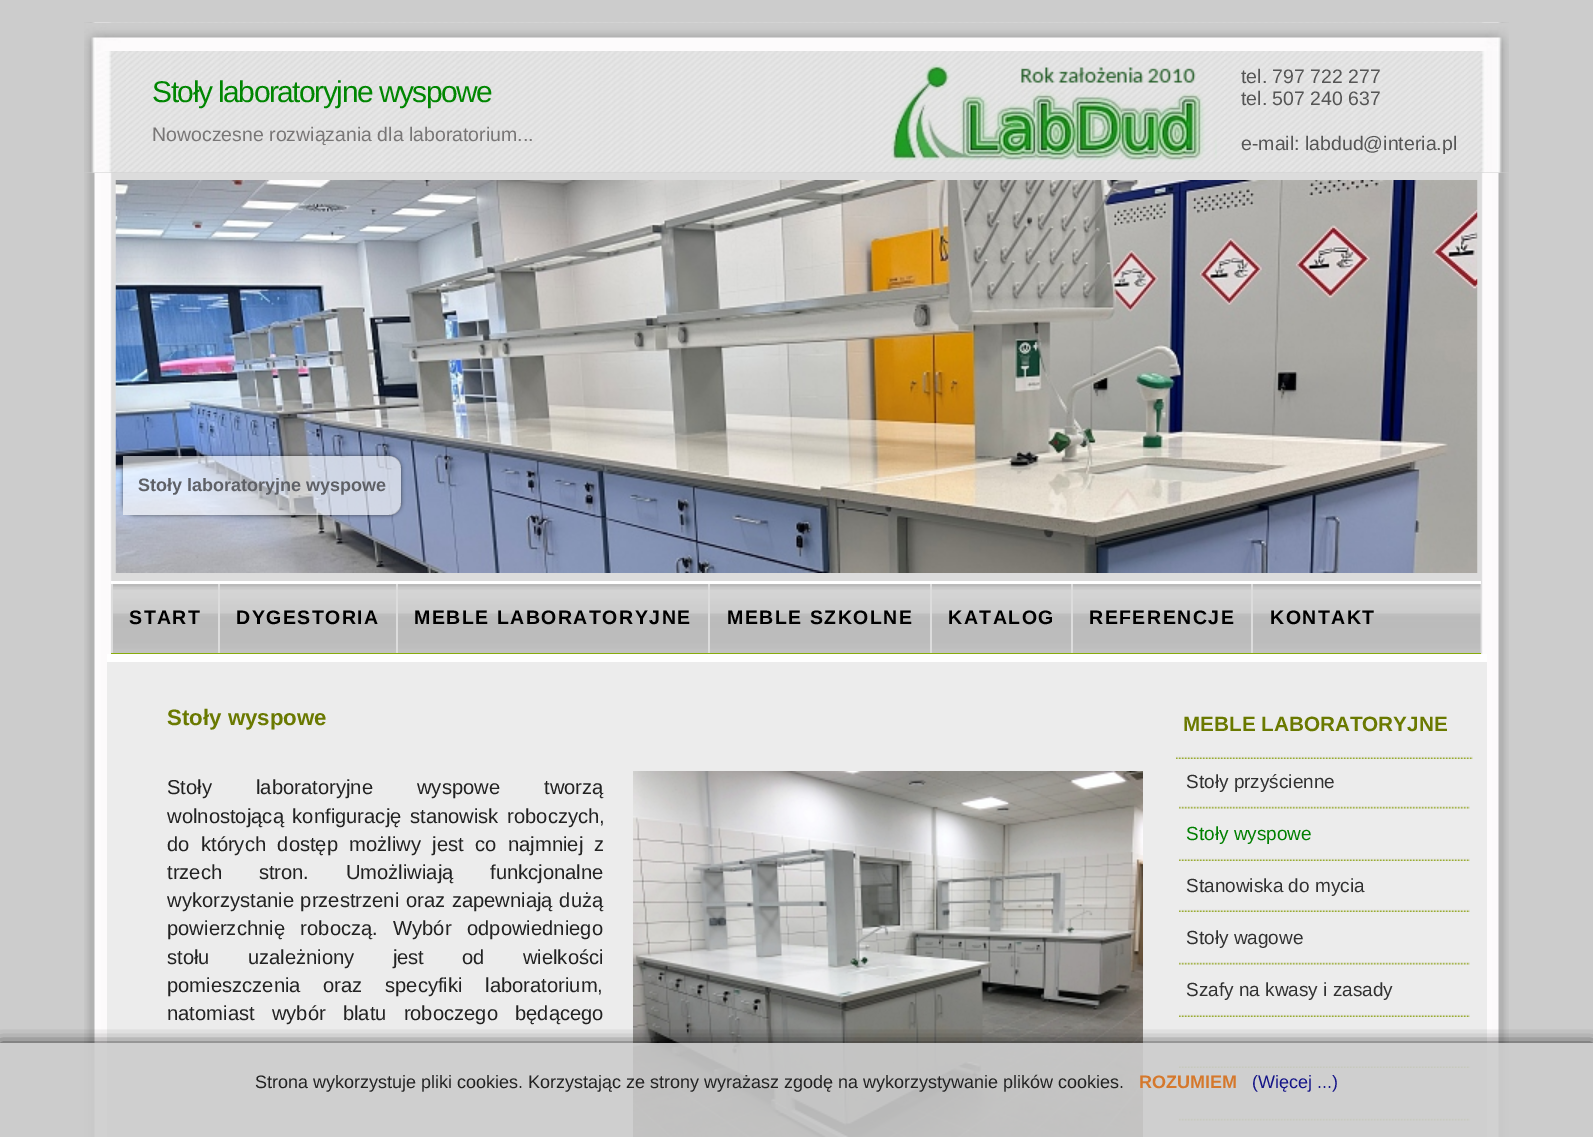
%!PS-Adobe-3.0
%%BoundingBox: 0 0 1593 1137
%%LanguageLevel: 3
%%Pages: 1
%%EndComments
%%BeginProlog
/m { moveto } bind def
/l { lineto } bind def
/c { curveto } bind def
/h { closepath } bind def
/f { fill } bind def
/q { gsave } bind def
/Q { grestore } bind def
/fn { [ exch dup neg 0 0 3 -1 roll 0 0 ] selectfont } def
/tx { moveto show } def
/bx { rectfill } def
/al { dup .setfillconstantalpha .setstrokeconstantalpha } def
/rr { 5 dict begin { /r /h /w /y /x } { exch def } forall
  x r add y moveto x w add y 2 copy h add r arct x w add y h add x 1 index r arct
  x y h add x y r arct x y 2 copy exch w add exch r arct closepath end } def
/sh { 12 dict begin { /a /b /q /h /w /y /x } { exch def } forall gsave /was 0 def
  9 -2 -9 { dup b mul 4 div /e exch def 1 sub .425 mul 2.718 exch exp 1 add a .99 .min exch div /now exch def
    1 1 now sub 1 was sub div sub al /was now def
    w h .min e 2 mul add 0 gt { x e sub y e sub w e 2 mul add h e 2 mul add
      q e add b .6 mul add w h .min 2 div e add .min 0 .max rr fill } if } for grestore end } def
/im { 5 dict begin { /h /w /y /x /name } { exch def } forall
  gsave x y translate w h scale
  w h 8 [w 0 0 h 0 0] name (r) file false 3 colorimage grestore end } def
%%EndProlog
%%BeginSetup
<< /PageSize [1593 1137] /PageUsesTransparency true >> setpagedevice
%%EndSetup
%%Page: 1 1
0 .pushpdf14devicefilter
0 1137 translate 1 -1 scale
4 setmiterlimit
0.8 setgray
0 0 1593 1137 bx
(image0.raw) 84 22 1425 1115 im
84 172 1425 1 bx
(image2.raw) 84 22 1425 151 im
(image1.raw) 84 22 1425 29 im
/LiberationSans-Regular 30 fn
0 0.525 0.004 setrgbcolor
152 102 m -1.5 0 (Stoły laboratoryjne wyspowe) ashow
(image3.raw) 891 64 326 97 im
/LiberationSans-Regular 19.5 fn
0.333 setgray
(tel. 797 722 277) 1241 83 tx
(tel. 507 240 637) 1241 105 tx
(e-mail: labdud@interia.pl) 1241 150 tx
0.471 0.463 0.463 setrgbcolor
(Nowoczesne rozwiązania dla laboratorium...) 152 141 tx
(image4.raw) 115 180 1363 393 im
q
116 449 m 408 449 l 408 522 l 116 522 l h 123 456 m 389 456 l 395.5 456 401 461.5 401 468 c 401 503 l 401 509.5 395.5 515 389 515 c 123 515 l h eoclip newpath
0 setgray
123 456 278 59 12 2 0.6 sh
Q
0.6 al
1 setgray
123 456 m 389 456 l 395.5 456 401 461.5 401 468 c 401 503 l 401 509.5 395.5 515 389 515 c 123 515 l h f
/LiberationSans-Bold 18 fn
1 al
0.369 0.376 0.4 setrgbcolor
(Stoły laboratoryjne wyspowe) 138 491 tx
(image5.raw) 113 584 1368 69 im
1 setgray
111 581 1370 3 bx
0.533 0.675 0.043 setrgbcolor
111 653 1370 1 bx
0.863 setgray
111 584 1 69 bx
/LiberationSans-Bold 19.5 fn
0 setgray
129 624 m 1.5 0 (START) ashow
0.863 setgray
218 584 2 69 bx
0 setgray
236 624 m 1.5 0 (DYGESTORIA) ashow
0.863 setgray
396 584 2 69 bx
0 setgray
414 624 m 1.5 0 (MEBLE LABORATORYJNE) ashow
0.863 setgray
708 584 2 69 bx
0 setgray
727 624 m 1.5 0 (MEBLE SZKOLNE) ashow
0.863 setgray
930 584 2 69 bx
0 setgray
948 624 m 1.5 0 (KATALOG) ashow
0.863 setgray
1071 584 2 69 bx
0 setgray
1089 624 m 1.5 0 (REFERENCJE) ashow
0.863 setgray
1251 584 2 69 bx
0 setgray
1270 624 m 1.5 0 (KONTAKT) ashow
0.925 setgray
107 662 1380 475 bx
1 setgray
107 654 1380 8 bx
/LiberationSans-Bold 22.25 fn
0.416 0.475 0 setrgbcolor
(Stoły wyspowe) 167 725 tx
/LiberationSans-Regular 20.2 fn
0.133 setgray
167 794 m 38.5 0 32 (Stoły laboratoryjne wyspowe tworzą) widthshow
167 823 m 3 0 32 (wolnostojącą konfigurację stanowisk roboczych,) widthshow
167 851 m 5.75 0 32 (do których dostęp możliwy jest co najmniej z) widthshow
167 879 m 31 0 32 (trzech stron. Umożliwiają funkcjonalne) widthshow
167 907 m 1 0 32 (wykorzystanie przestrzeni oraz zapewniają dużą) widthshow
167 935 m 10 0 32 (powierzchnię roboczą.) widthshow
393 935 m 10 0 32 (Wybór odpowiedniego) widthshow
167 964 m 32.5 0 32 (stołu uzależniony jest od wielkości) widthshow
167 992 m 17 0 32 (pomieszczenia oraz specyfiki laboratorium,) widthshow
167 1020 m 11.5 0 32 (natomiast wybór blatu roboczego będącego) widthshow
(image6.raw) 633 771 510 366 im
/LiberationSans-Bold 20.7 fn
0.416 0.475 0 setrgbcolor
(MEBLE LABORATORYJNE) 1183 731 tx
(image7.raw) 1176 756 297 3 im
(image8.raw) 1179 806 291 3 im
/LiberationSans-Regular 19 fn
0.192 setgray
(Stoły przyścienne) 1186 788 tx
(image9.raw) 1179 858 291 3 im
0 0.498 0 setrgbcolor
(Stoły wyspowe) 1186 840 tx
(image9.raw) 1179 909 291 3 im
0.192 setgray
(Stanowiska do mycia) 1186 892 tx
(image8.raw) 1179 962 291 3 im
(Stoły wagowe) 1186 944 tx
(image9.raw) 1179 1014 291 3 im
(Szafy na kwasy i zasady) 1186 996 tx
(image9.raw) 1179 1065 291 3 im
(image8.raw) 1179 1118 291 3 im
q
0 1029 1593 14 rectclip
0 setgray
0 1043 1593 94 0 7.5 0.72 sh
Q
0.9 al
0.8 setgray
84 1043 1425 94 bx
/LiberationSans-Regular 18 fn
1 al
0.133 setgray
(Strona wykorzystuje pliki cookies. Korzystając ze strony wyrażasz zgodę na wykorzystywanie plików cookies.) 255 1088 tx
/LiberationSans-Bold 18 fn
0.835 0.471 0.173 setrgbcolor
(ROZUMIEM) 1139 1088 tx
/LiberationSans-Regular 18 fn
0.082 0.082 0.533 setrgbcolor
(\(Więcej ...\)) 1252 1088 tx
.poppdf14devicefilter showpage
%%EOF
